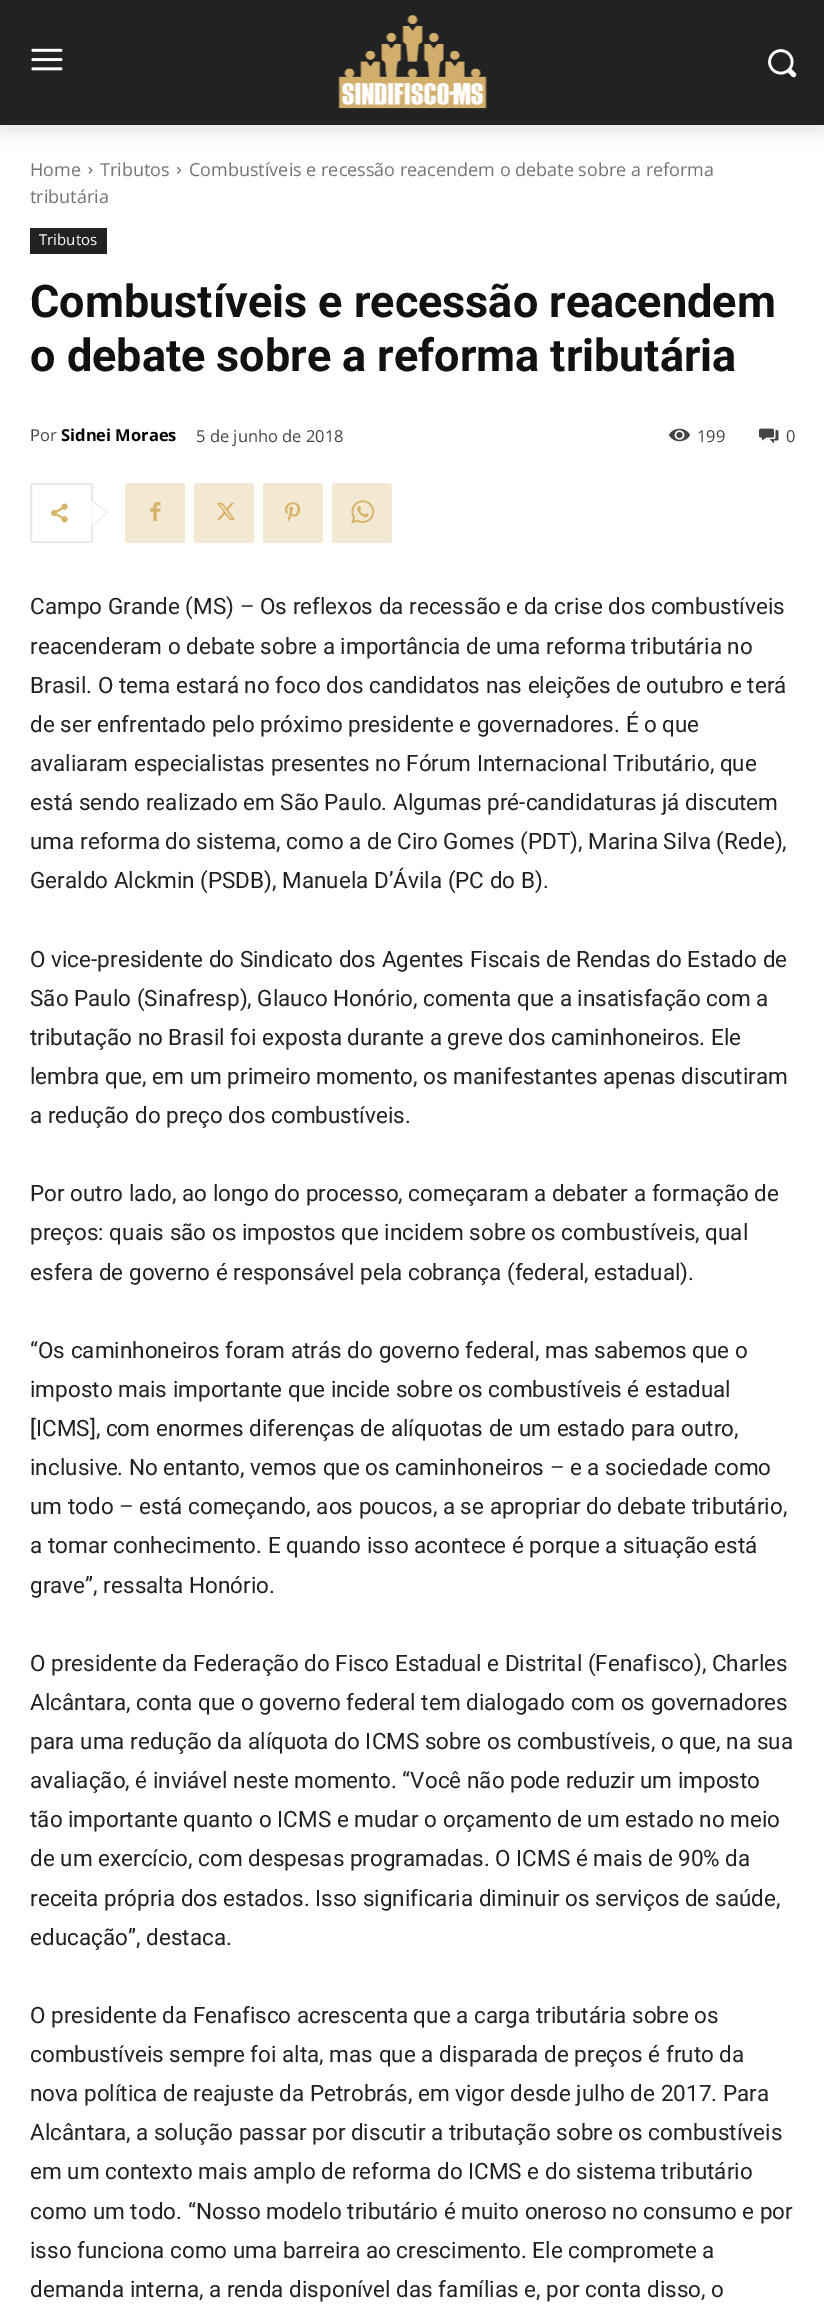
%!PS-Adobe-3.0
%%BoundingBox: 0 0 824 2317
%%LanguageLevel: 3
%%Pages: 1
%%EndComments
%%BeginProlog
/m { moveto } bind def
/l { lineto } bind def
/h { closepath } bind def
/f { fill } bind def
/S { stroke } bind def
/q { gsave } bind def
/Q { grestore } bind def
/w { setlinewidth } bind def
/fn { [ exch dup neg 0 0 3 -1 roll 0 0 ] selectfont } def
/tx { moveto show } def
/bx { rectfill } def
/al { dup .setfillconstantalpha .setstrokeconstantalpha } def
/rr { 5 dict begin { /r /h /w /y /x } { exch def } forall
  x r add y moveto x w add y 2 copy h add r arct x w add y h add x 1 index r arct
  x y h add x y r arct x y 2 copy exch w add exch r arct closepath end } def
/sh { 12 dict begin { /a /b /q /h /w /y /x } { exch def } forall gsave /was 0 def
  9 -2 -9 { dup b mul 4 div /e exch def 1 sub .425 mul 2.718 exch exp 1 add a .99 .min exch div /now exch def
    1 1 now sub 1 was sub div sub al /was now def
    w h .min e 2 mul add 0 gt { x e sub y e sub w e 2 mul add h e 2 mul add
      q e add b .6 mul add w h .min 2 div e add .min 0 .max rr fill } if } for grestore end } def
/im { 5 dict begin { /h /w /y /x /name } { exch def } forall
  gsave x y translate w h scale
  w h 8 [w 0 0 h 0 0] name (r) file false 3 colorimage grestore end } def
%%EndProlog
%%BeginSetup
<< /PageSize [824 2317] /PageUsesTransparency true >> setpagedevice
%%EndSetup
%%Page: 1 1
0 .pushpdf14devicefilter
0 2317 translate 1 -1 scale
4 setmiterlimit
1 setgray
0 0 824 2317 bx
0.133 setgray
0 0 824 125 bx
(image0.raw) 31 48 32 23 im
(image1.raw) 338 15 149 94 im
(image2.raw) 768 49 29 29 im
q
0 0 m 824 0 l 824 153 l 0 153 l h 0 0 m 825 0 l 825 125 l 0 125 l h eoclip newpath
0 setgray
0 9 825 125 0 6 0.08 sh
Q
/OpenSans-Regular 18 fn
0.455 setgray
(Home) 30 176 tx
(image3.raw) 88 166 5 8 im
(Tributos) 100 176 tx
(image4.raw) 177 166 4 8 im
(Combustíveis e recessão reacendem o debate sobre a reforma) 189 176 tx
(tributária) 30 203 tx
0.133 setgray
30 228 77 26 bx
/OpenSans-Regular 15 fn
1 setgray
(Tributos) 39 245 tx
/Roboto-Bold 45 fn
0.067 setgray
(Combustíveis e recessão reacendem) 30 317 tx
(o debate sobre a reforma tributária) 30 371 tx
/OpenSans-Regular 16.5 fn
0.267 setgray
(Por) 30 441 tx
/OpenSans-Bold 16.5 fn
0 setgray
(Sidnei Moraes) 61 441 tx
/OpenSans-Regular 16.5 fn
0.267 setgray
(5 de junho de 2018) 196 442 tx
(image5.raw) 669 428 21 14 im
(199) 697 442 tx
(image6.raw) 759 428 20 16 im
(0) 786 442 tx
0.914 setgray
2 w
31 484 61 58 2 rr S
91.5 526.5 m 91.5 499.5 l 108 513 l h f
(image7.raw) 51 503 17 20 im
1 setgray
91.5 525 m 91.5 501 l 106.5 513 l h f
0.953 0.914 0.827 setrgbcolor
125 483 60 60 3 rr f
(image8.raw) 150 502 11 19 im
194 483 60 60 3 rr f
(image9.raw) 216 502 20 18 im
263 483 60 60 3 rr f
(image10.raw) 285 502 16 20 im
332 483 60 60 3 rr f
(image11.raw) 351 500 24 24 im
/Roboto-Regular 22.5 fn
0.133 setgray
(Campo Grande \(MS\) – Os reflexos da recessão e da crise dos combustíveis) 30 614 tx
(reacenderam o debate sobre a importância de uma reforma tributária no) 30 654 tx
(Brasil. O tema estará no foco dos candidatos nas eleições de outubro e terá) 30 693 tx
(de ser enfrentado pelo próximo presidente e governadores. É o que) 30 732 tx
(avaliaram especialistas presentes no Fórum Internacional Tributário, que) 30 771 tx
(está sendo realizado em São Paulo. Algumas pré-candidaturas já discutem) 30 810 tx
(uma reforma do sistema, como a de Ciro Gomes \(PDT\), Marina Silva \(Rede\),) 30 849 tx
(Geraldo Alckmin \(PSDB\), Manuela D’Ávila \(PC do B\).) 30 888 tx
(O vice-presidente do Sindicato dos Agentes Fiscais de Rendas do Estado de) 30 967 tx
(São Paulo \(Sinafresp\), Glauco Honório, comenta que a insatisfação com a) 30 1006 tx
(tributação no Brasil foi exposta durante a greve dos caminhoneiros. Ele) 30 1045 tx
(lembra que, em um primeiro momento, os manifestantes apenas discutiram) 30 1084 tx
(a redução do preço dos combustíveis.) 30 1123 tx
(Por outro lado, ao longo do processo, começaram a debater a formação de) 30 1201 tx
(preços: quais são os impostos que incidem sobre os combustíveis, qual) 30 1240 tx
(esfera de governo é responsável pela cobrança \(federal, estadual\).) 30 1280 tx
(“Os caminhoneiros foram atrás do governo federal, mas sabemos que o) 30 1358 tx
(imposto mais importante que incide sobre os combustíveis é estadual) 30 1397 tx
([ICMS], com enormes diferenças de alíquotas de um estado para outro,) 30 1436 tx
(inclusive. No entanto, vemos que os caminhoneiros – e a sociedade como) 30 1475 tx
(um todo – está começando, aos poucos, a se apropriar do debate tributário,) 30 1514 tx
(a tomar conhecimento. E quando isso acontece é porque a situação está) 30 1553 tx
(grave”, ressalta Honório.) 30 1593 tx
(O presidente da Federação do Fisco Estadual e Distrital \(Fenafisco\), Charles) 30 1671 tx
(Alcântara, conta que o governo federal tem dialogado com os governadores) 30 1710 tx
(para uma redução da alíquota do ICMS sobre os combustíveis, o que, na sua) 30 1749 tx
(avaliação, é inviável neste momento. “Você não pode reduzir um imposto) 30 1788 tx
(tão importante quanto o ICMS e mudar o orçamento de um estado no meio) 30 1827 tx
(de um exercício, com despesas programadas. O ICMS é mais de 90% da) 30 1866 tx
(receita própria dos estados. Isso significaria diminuir os serviços de saúde,) 30 1906 tx
(educação”, destaca.) 30 1945 tx
(O presidente da Fenafisco acrescenta que a carga tributária sobre os) 30 2023 tx
(combustíveis sempre foi alta, mas que a disparada de preços é fruto da) 30 2062 tx
(nova política de reajuste da Petrobrás, em vigor desde julho de 2017. Para) 30 2101 tx
(Alcântara, a solução passar por discutir a tributação sobre os combustíveis) 30 2140 tx
(em um contexto mais amplo de reforma do ICMS e do sistema tributário) 30 2179 tx
(como um todo. “Nosso modelo tributário é muito oneroso no consumo e por) 30 2219 tx
(isso funciona como uma barreira ao crescimento. Ele compromete a) 30 2258 tx
(demanda interna, a renda disponível das famílias e, por conta disso, o) 30 2297 tx
.poppdf14devicefilter showpage
%%EOF
